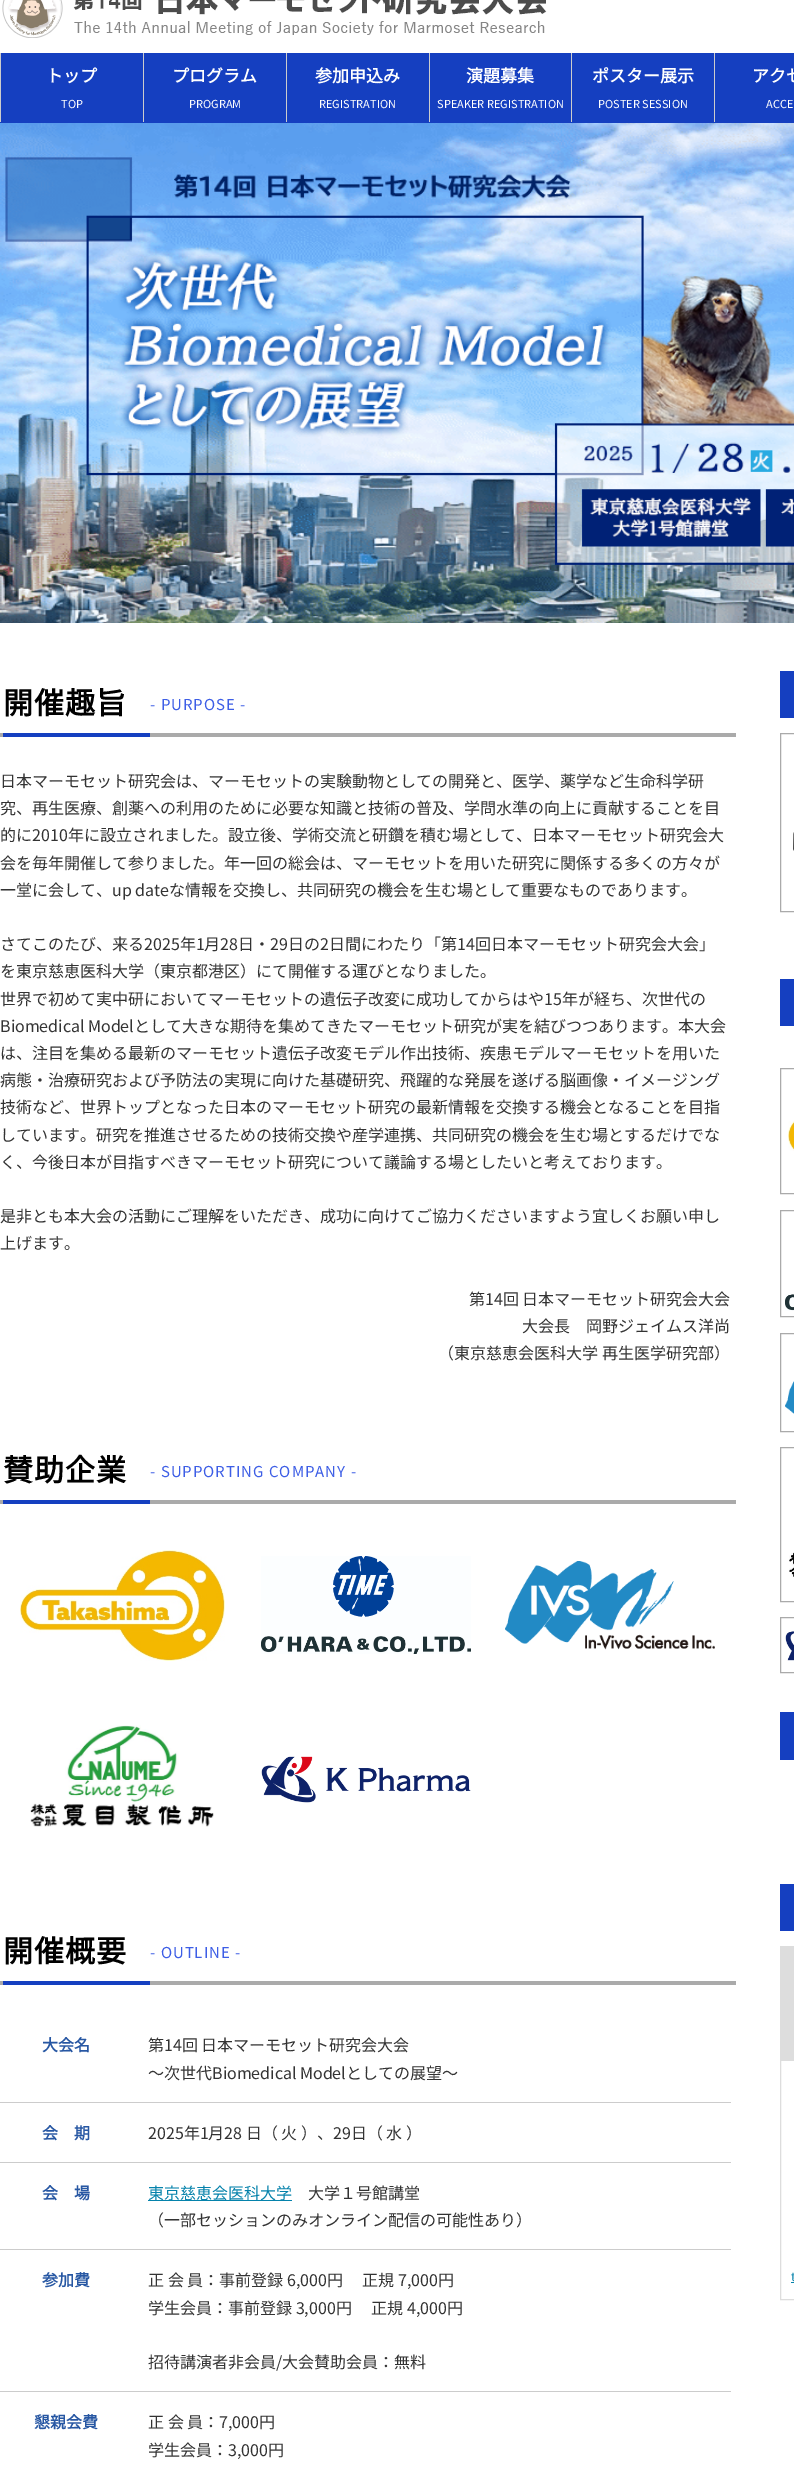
%!PS-Adobe-3.0
%%BoundingBox: 0 0 794 2474
%%LanguageLevel: 3
%%Pages: 1
%%EndComments
%%BeginProlog
/m { moveto } bind def
/fn { [ exch dup neg 0 0 3 -1 roll 0 0 ] selectfont } def
/tx { moveto show } def
/bx { rectfill } def
/im { 5 dict begin { /h /w /y /x /name } { exch def } forall
  gsave x y translate w h scale
  w h 8 [w 0 0 h 0 0] name (r) file false 3 colorimage grestore end } def
%%EndProlog
%%BeginSetup
<< /PageSize [794 2474] >> setpagedevice
%%EndSetup
%%Page: 1 1
0 2474 translate 1 -1 scale
4 setmiterlimit
1 setgray
0 0 794 2474 bx
(image0.raw) 2 0 545 38 im
0.082 0.247 0.753 setrgbcolor
0 53 794 70 bx
0.8 setgray
0 53 1 69 bx
143 53 1 69 bx
/NotoSansJP-Bold 17 fn
1 setgray
(トップ) 46 82 tx
/NotoSansJP-Thin 11 fn
(TOP) 61 108 tx
0.8 setgray
286 53 1 69 bx
/NotoSansJP-Bold 17 fn
1 setgray
(プログラム) 172 82 tx
/NotoSansJP-Thin 11 fn
(PROGRAM) 189 108 tx
0.8 setgray
429 53 1 69 bx
/NotoSansJP-Bold 17 fn
1 setgray
(参加申込み) 315 82 tx
/NotoSansJP-Thin 11 fn
(REGISTRATION) 319 108 tx
0.8 setgray
571 53 1 69 bx
/NotoSansJP-Bold 17 fn
1 setgray
(演題募集) 466 82 tx
/NotoSansJP-Thin 11 fn
(SPEAKER REGISTRATION) 437 108 tx
0.8 setgray
714 53 1 69 bx
/NotoSansJP-Bold 17 fn
1 setgray
(ポスター展示) 592 82 tx
/NotoSansJP-Thin 11 fn
(POSTER SESSION) 598 108 tx
/NotoSansJP-Bold 17 fn
(アクセ) 752 82 tx
/NotoSansJP-Thin 11 fn
(ACCE) 766 108 tx
(image1.raw) 0 123 794 500 im
(image2.raw) 5 157 789 408 im
0.667 setgray
0 733 736 4 bx
/NotoSansJP-Bold 30 fn
0 setgray
3 714 m 1 0 (開催趣旨) ashow
/NotoSansJP-Thin 15 fn
0.239 0.369 0.902 setrgbcolor
150 710 m 1 0 (- PURPOSE -) ashow
0.082 0.247 0.753 setrgbcolor
3 733 147 4 bx
/NotoSansJP-Thin 16 fn
0.2 setgray
(日本マーモセット研究会は、マーモセットの実験動物としての開発と、医学、薬学など生命科学研) 0 787 tx
(究、再生医療、創薬への利用のために必要な知識と技術の普及、学問水準の向上に貢献することを目) 0 814 tx
(的に2010年に設立されました。設立後、学術交流と研鑽を積む場として、日本マーモセット研究会大) 0 841 tx
(会を毎年開催して参りました。年一回の総会は、マーモセットを用いた研究に関係する多くの方々が) 0 869 tx
(一堂に会して、up dateな情報を交換し、共同研究の機会を生む場として重要なものであります。) 0 896 tx
(さてこのたび、来る2025年1月28日・29日の2日間にわたり「第14回日本マーモセット研究会大会」) 0 950 tx
(を東京慈恵医科大学（東京都港区）にて開催する運びとなりました。) 0 977 tx
(世界で初めて実中研においてマーモセットの遺伝子改変に成功してからはや15年が経ち、次世代の) 0 1005 tx
(Biomedical Modelとして大きな期待を集めてきたマーモセット研究が実を結びつつあります。本大会) 0 1032 tx
(は、注目を集める最新のマーモセット遺伝子改変モデル作出技術、疾患モデルマーモセットを用いた) 0 1059 tx
(病態・治療研究および予防法の実現に向けた基礎研究、飛躍的な発展を遂げる脳画像・イメージング) 0 1086 tx
(技術など、世界トップとなった日本のマーモセット研究の最新情報を交換する機会となることを目指) 0 1113 tx
(しています。研究を推進させるための技術交換や産学連携、共同研究の機会を生む場とするだけでな) 0 1141 tx
(く、今後日本が目指すべきマーモセット研究について議論する場としたいと考えております。) 0 1168 tx
(是非とも本大会の活動にご理解をいただき、成功に向けてご協力くださいますよう宜しくお願い申し) 0 1222 tx
(上げます。) 0 1249 tx
(第14回 日本マーモセット研究会大会) 469 1305 tx
(大会長　岡野ジェイムス洋尚) 522 1332 tx
(（東京慈恵会医科大学 再生医学研究部）) 438 1359 tx
0.667 setgray
0 1500 736 4 bx
/NotoSansJP-Bold 30 fn
0 setgray
3 1481 m 1 0 (賛助企業) ashow
/NotoSansJP-Thin 15 fn
0.239 0.369 0.902 setrgbcolor
150 1477 m 1 0 (- SUPPORTING COMPANY -) ashow
0.082 0.247 0.753 setrgbcolor
3 1500 147 4 bx
(image3.raw) 20 1550 205 111 im
(image4.raw) 261 1556 210 98 im
(image5.raw) 505 1561 210 89 im
(image6.raw) 30 1725 184 102 im
(image7.raw) 261 1756 210 47 im
0.667 setgray
0 1981 736 4 bx
/NotoSansJP-Bold 30 fn
0 setgray
3 1962 m 1 0 (開催概要) ashow
/NotoSansJP-Thin 15 fn
0.239 0.369 0.902 setrgbcolor
150 1958 m 1 0 (- OUTLINE -) ashow
0.082 0.247 0.753 setrgbcolor
3 1981 147 4 bx
/NotoSansJP-Bold 16 fn
0.153 0.341 0.639 setrgbcolor
(大会名) 42 2051 tx
0.8 setgray
0 2102 731 1 bx
/NotoSansJP-Thin 16 fn
0.2 setgray
(第14回 日本マーモセット研究会大会) 148 2051 tx
(～次世代Biomedical Modelとしての展望～) 148 2079 tx
/NotoSansJP-Bold 16 fn
0.153 0.341 0.639 setrgbcolor
(会　期) 42 2139 tx
0.8 setgray
0 2162 731 1 bx
/NotoSansJP-Thin 16 fn
0.2 setgray
(2025年1月28 日（ 火 ）、29日（ 水 ）) 148 2139 tx
/NotoSansJP-Bold 16 fn
0.153 0.341 0.639 setrgbcolor
(会　場) 42 2199 tx
0.8 setgray
0 2249 731 1 bx
0.02 0.51 0.671 setrgbcolor
148 2200 144 1 bx
/NotoSansJP-Thin 16 fn
(東京慈恵会医科大学) 148 2199 tx
0.2 setgray
(大学１号館講堂) 308 2199 tx
(（一部セッションのみオンライン配信の可能性あり）) 148 2226 tx
/NotoSansJP-Bold 16 fn
0.153 0.341 0.639 setrgbcolor
(参加費) 42 2286 tx
0.8 setgray
0 2391 731 1 bx
/NotoSansJP-Thin 16 fn
0.2 setgray
(正 会 員：事前登録 6,000円 　正規 7,000円) 148 2286 tx
(学生会員：事前登録 3,000円 　正規 4,000円) 148 2314 tx
(招待講演者非会員/大会賛助会員：無料) 148 2368 tx
/NotoSansJP-Bold 16 fn
0.153 0.341 0.639 setrgbcolor
(懇親会費) 34 2428 tx
/NotoSansJP-Thin 16 fn
0.2 setgray
(正 会 員：7,000円) 148 2428 tx
(学生会員：3,000円) 148 2456 tx
0.082 0.247 0.753 setrgbcolor
780 671 14 47 bx
0.667 setgray
780.5 733.5 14 178 rectstroke
(image8.raw) 793 832 1 19 im
0.082 0.247 0.753 setrgbcolor
780 979 14 47 bx
0.667 setgray
780.5 1068.5 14 125 rectstroke
(image9.raw) 788 1121 6 30 im
780.5 1210.5 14 106 rectstroke
(image10.raw) 785 1294 9 17 im
780.5 1333.5 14 98 rectstroke
(image11.raw) 785 1381 9 33 im
780.5 1447.5 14 154 rectstroke
(image12.raw) 789 1552 5 25 im
780.5 1617.5 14 55 rectstroke
(image13.raw) 785 1631 9 30 im
0.082 0.247 0.753 setrgbcolor
780 1712 14 48 bx
780 1884 14 47 bx
0.867 setgray
780.5 1946.5 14 353 rectstroke
781 1947 13 114 bx
/NotoSansJP-Thin 12 fn
0.02 0.51 0.671 setrgbcolor
(t) 791 2281 tx
791 2282 3 1 bx
showpage
%%EOF
